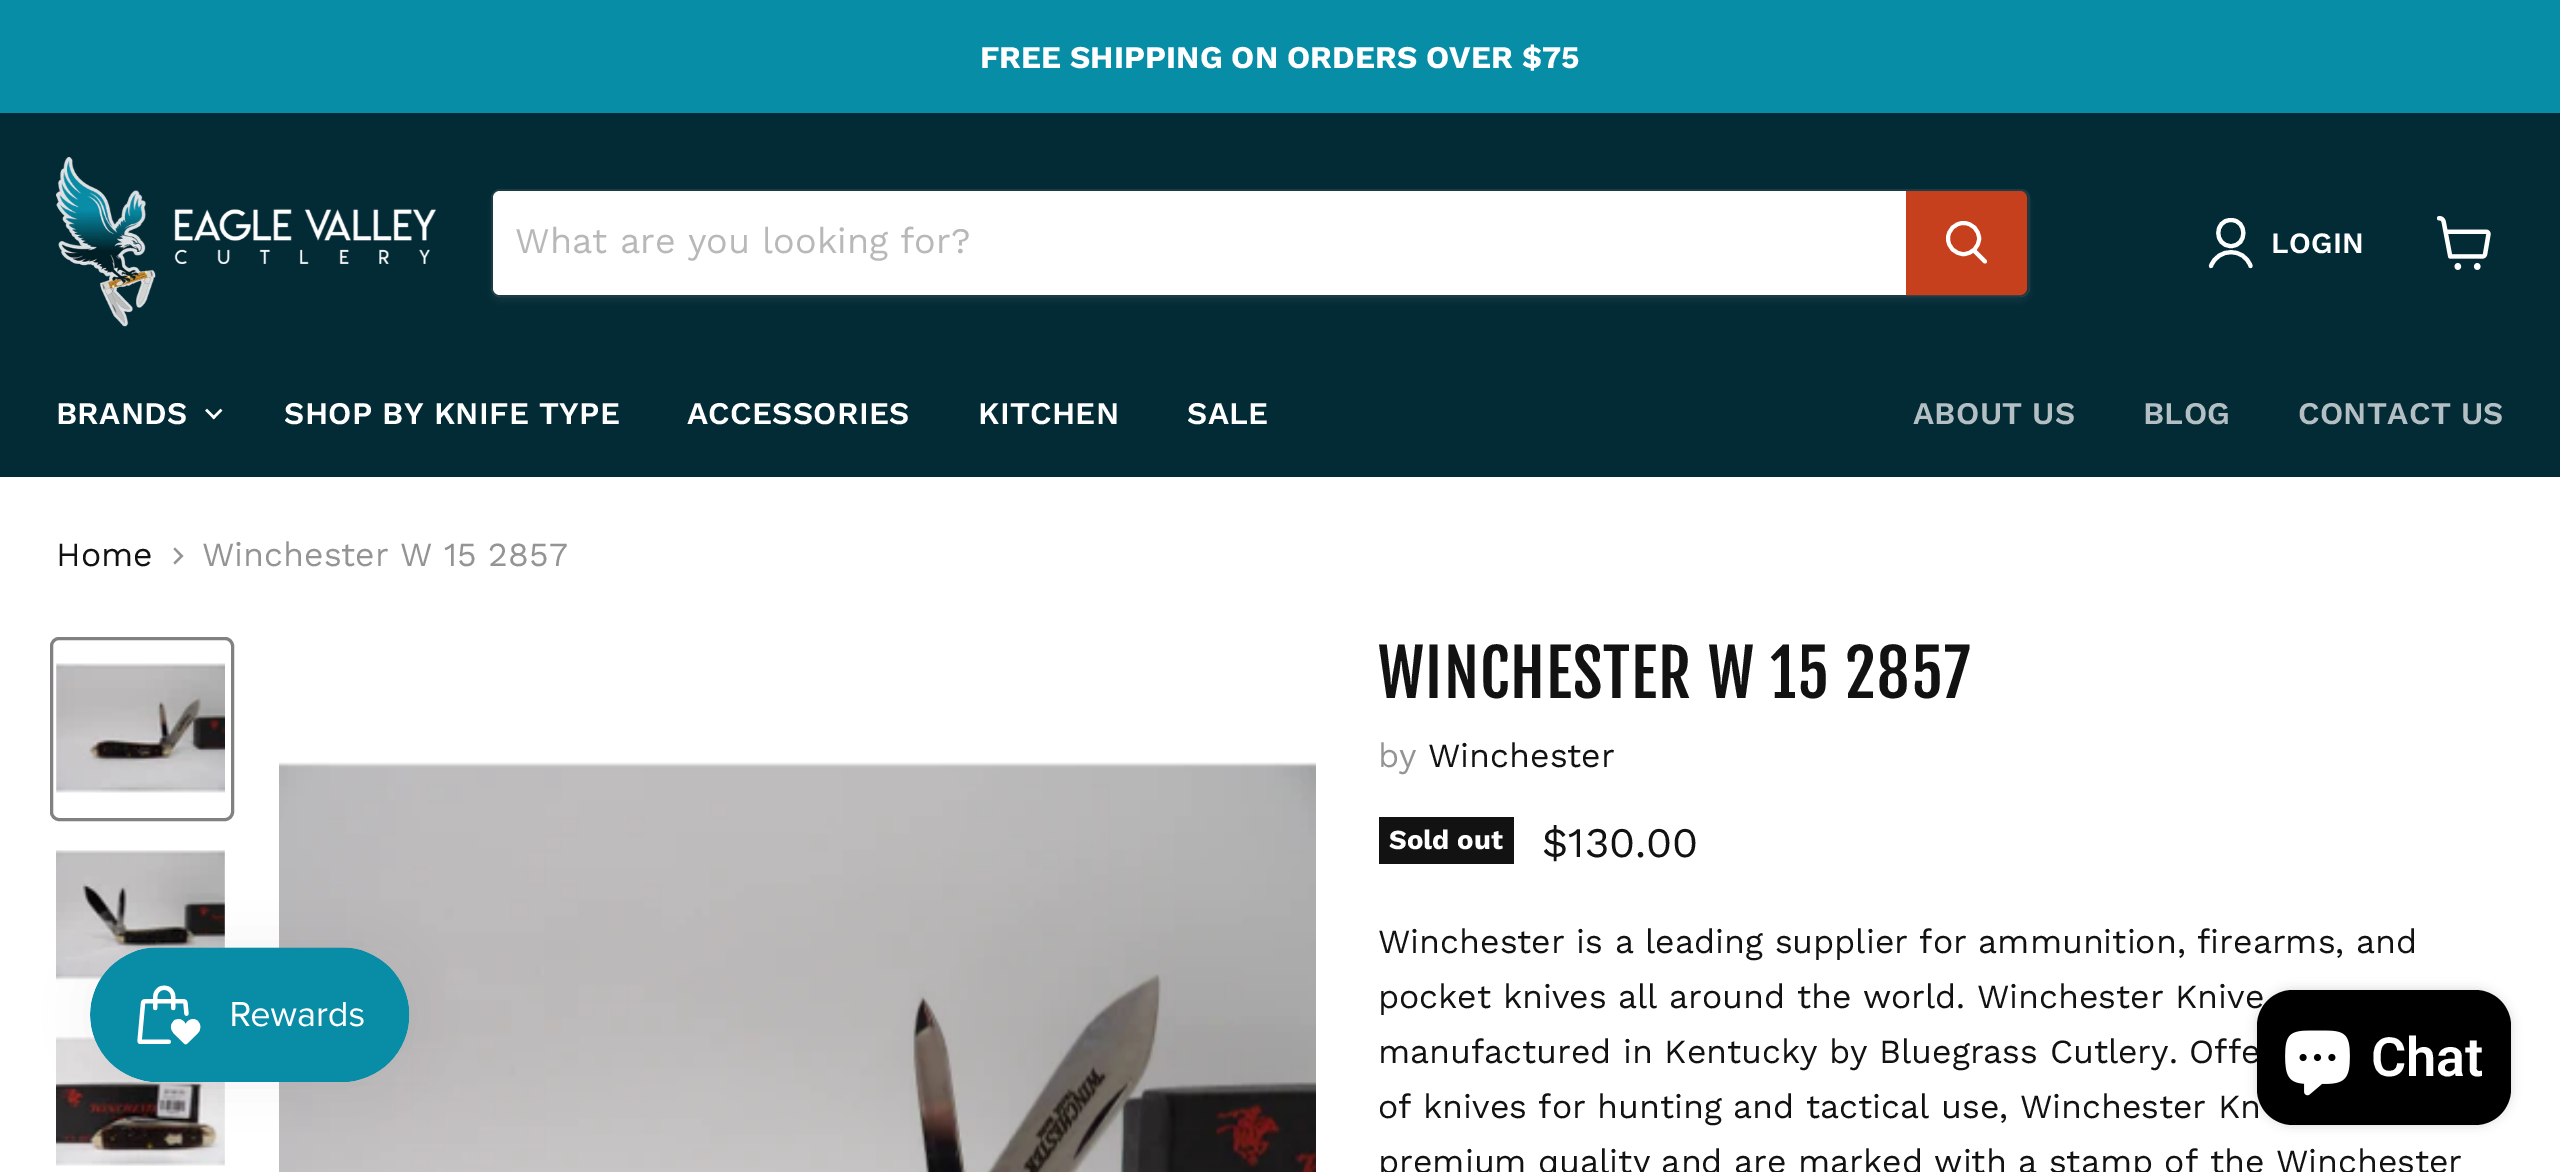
%!PS-Adobe-3.0
%%BoundingBox: 0 0 2560 1172
%%LanguageLevel: 3
%%Pages: 1
%%EndComments
%%BeginProlog
/m { moveto } bind def
/l { lineto } bind def
/c { curveto } bind def
/h { closepath } bind def
/f { fill } bind def
/S { stroke } bind def
/q { gsave } bind def
/Q { grestore } bind def
/w { setlinewidth } bind def
/fn { [ exch dup neg 0 0 3 -1 roll 0 0 ] selectfont } def
/tx { moveto show } def
/bx { rectfill } def
/al { dup .setfillconstantalpha .setstrokeconstantalpha } def
/ci { newpath 0 360 arc closepath } def
/rr { 5 dict begin { /r /h /w /y /x } { exch def } forall
  x r add y moveto x w add y 2 copy h add r arct x w add y h add x 1 index r arct
  x y h add x y r arct x y 2 copy exch w add exch r arct closepath end } def
/sh { 12 dict begin { /a /b /q /h /w /y /x } { exch def } forall gsave /was 0 def
  9 -2 -9 { dup b mul 4 div /e exch def 1 sub .425 mul 2.718 exch exp 1 add a .99 .min exch div /now exch def
    1 1 now sub 1 was sub div sub al /was now def
    w h .min e 2 mul add 0 gt { x e sub y e sub w e 2 mul add h e 2 mul add
      q e add b .6 mul add w h .min 2 div e add .min 0 .max rr fill } if } for grestore end } def
/im { 5 dict begin { /h /w /y /x /name } { exch def } forall
  gsave x y translate w h scale
  w h 8 [w 0 0 h 0 0] name (r) file false 3 colorimage grestore end } def
%%EndProlog
%%BeginSetup
<< /PageSize [2560 1172] /PageUsesTransparency true >> setpagedevice
%%EndSetup
%%Page: 1 1
0 .pushpdf14devicefilter
0 1172 translate 1 -1 scale
4 setmiterlimit
1 setgray
0 0 2560 1172 bx
0.031 0.553 0.655 setrgbcolor
0 0 2560 113 bx
/WorkSans-Bold 31.6 fn
1 setgray
(FREE SHIPPING ON ORDERS OVER $75) 980 68 tx
0.012 0.169 0.212 setrgbcolor
0 113 2560 364 bx
(image0.raw) 56 157 381 170 im
q
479 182 m 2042 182 l 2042 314 l 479 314 l h 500 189 m 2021 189 l 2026 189 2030 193 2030 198 c 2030 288 l 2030 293 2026 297 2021 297 c 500 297 l 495 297 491 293 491 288 c 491 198 l 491 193 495 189 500 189 c h eoclip newpath
0.502 setgray
491 194 1539 108 9 3.5 0.11 sh
Q
0.2 al
0.502 setgray
2 w
492 190 1537 106 8 rr S
1 al
1 setgray
500 191 m 1906 191 l 1906 295 l 500 295 l 496 295 493 292 493 288 c 493 198 l 493 194 496 191 500 191 c h f
/WorkSans-Regular 36 fn
0.722 setgray
(What are you looking for?) 515 253 tx
0.776 0.251 0.118 setrgbcolor
1907 192 m 2020 192 l 2023.5 192 2026 194.5 2026 198 c 2026 288 l 2026 291.5 2023.5 294 2020 294 c 1907 294 l h q f Q
S
1 setgray
3.9 w
1 setlinecap
1985 261.5 m 1974.5 251 l S
0 setlinecap
1963.5 238.5 15.5 ci S
4.1 w
1 setlinecap
1 setlinejoin
2231 246 m 2247.5 246 2247.5 220 2231 220 c 2214 220 2214 246 2231 246 c h 2250.5 266 m 2244 247.5 2218 247.5 2211 266 c S
/WorkSans-SemiBold 29.5 fn
2271 253 m 0.25 0 (LOGIN) ashow
(image1.raw) 2437 216 54 54 im
/WorkSans-SemiBold 31.5 fn
56 424 m 0.3 0 (BRANDS) ashow
(image2.raw) 205 408 18 12 im
284 424 m 0.3 0 (SHOP BY KNIFE TYPE) ashow
687 424 m 0.3 0 (ACCESSORIES) ashow
978 424 m 0.3 0 (KITCHEN) ashow
1187 424 m 0.3 0 (SALE) ashow
0.702 0.749 0.765 setrgbcolor
1913 424 m 0.3 0 (ABOUT US) ashow
2143 424 m 0.3 0 (BLOG) ashow
2298 424 m 0.3 0 (CONTACT US) ashow
/WorkSans-Regular 33.75 fn
0.071 setgray
(Home) 56 566 tx
0.58 setgray
173.5 562.5 m 175 564.5 l 183.5 556 l 175 547.5 l 173.5 549 l 180 556 l h eofill
(Winchester W 15 2857) 202 566 tx
0.506 setgray
3 w
0 setlinecap
0 setlinejoin
51.5 638.5 181 181 7.5 rr S
(image3.raw) 56 663 169 130 im
(image4.raw) 56 850 169 133 im
(image5.raw) 56 1036 169 130 im
(image6.raw) 279 762 1037 410 im
/FjallaOne-Regular 64.1 fn
0.071 setgray
1378 698 m 1.25 0 (WINCHESTER W 15 2857) ashow
/WorkSans-Regular 33.75 fn
0.58 setgray
(by) 1378 767 tx
0.071 setgray
(Winchester) 1428 767 tx
1379 817 135 47 bx
/WorkSans-Bold 27.5 fn
1 setgray
(Sold out) 1389 849 tx
/WorkSans-Regular 42 fn
0.071 setgray
($130.00) 1542 857 tx
/WorkSans-Regular 33.75 fn
(Winchester is a leading supplier for ammunition, firearms, and) 1378 953 tx
(pocket knives all around the world. Winchester Knive) 1378 1008 tx
(manufactured in Kentucky by Bluegrass Cutlery. Offe) 1378 1063 tx
(of knives for hunting and tactical use, Winchester Kn) 1378 1118 tx
(premium quality and are marked with a stamp of the Winchester) 1378 1173 tx
0 setgray
90 947 320 135 67.5 28 0.05 sh
(image7.raw) 90 947 320 135 im
2257 990 254 135 36 5.5 0.15 sh
2257 990 254 135 36 rr f
(image8.raw) 2285 1030 65 66 im
/Roboto-SemiBold 54 fn
1 setgray
(Chat) 2371 1076 tx
.poppdf14devicefilter showpage
%%EOF
